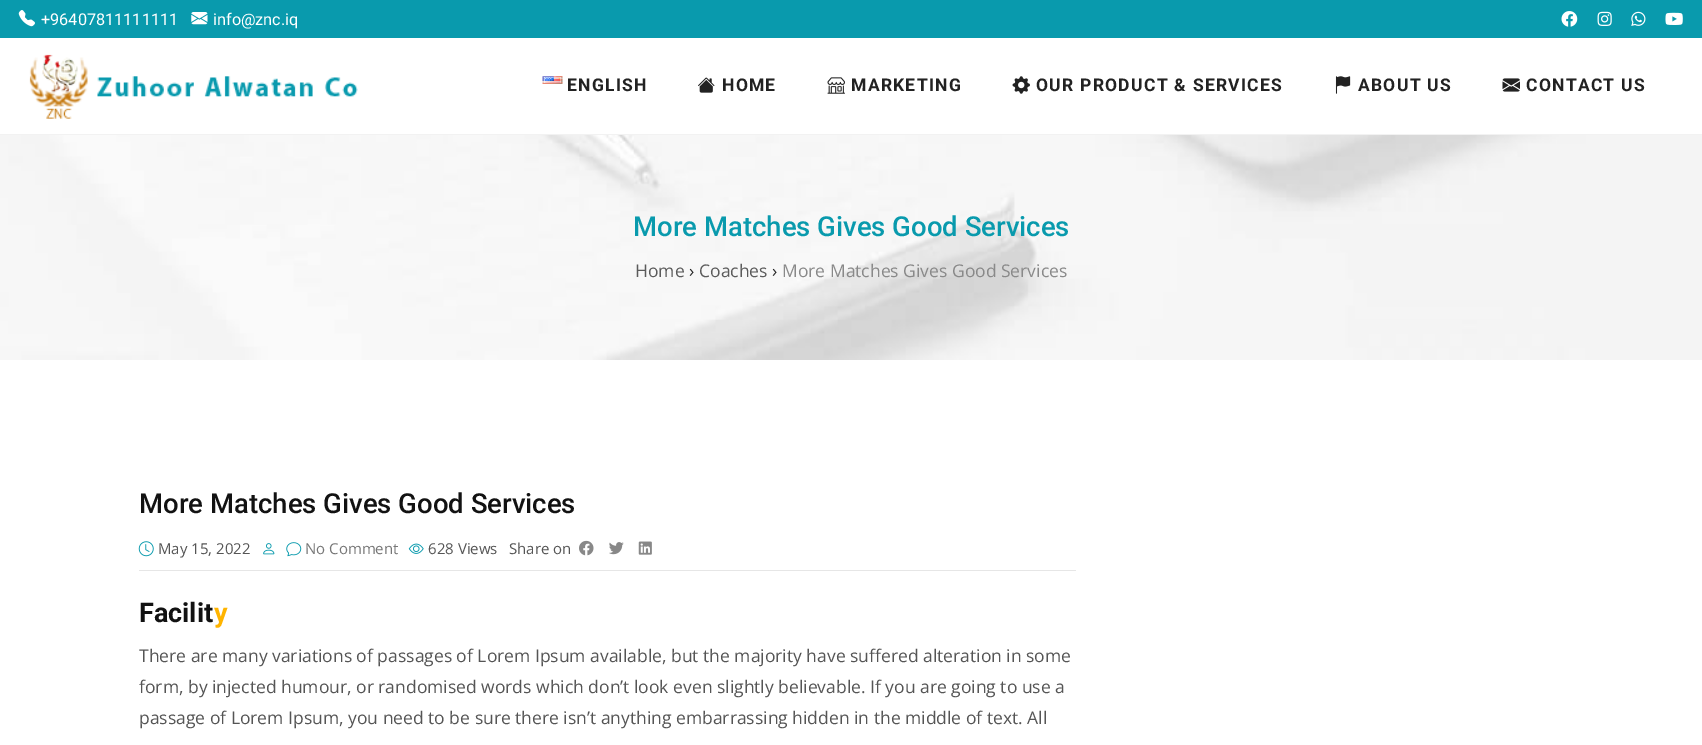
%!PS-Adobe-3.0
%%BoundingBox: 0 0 1702 745
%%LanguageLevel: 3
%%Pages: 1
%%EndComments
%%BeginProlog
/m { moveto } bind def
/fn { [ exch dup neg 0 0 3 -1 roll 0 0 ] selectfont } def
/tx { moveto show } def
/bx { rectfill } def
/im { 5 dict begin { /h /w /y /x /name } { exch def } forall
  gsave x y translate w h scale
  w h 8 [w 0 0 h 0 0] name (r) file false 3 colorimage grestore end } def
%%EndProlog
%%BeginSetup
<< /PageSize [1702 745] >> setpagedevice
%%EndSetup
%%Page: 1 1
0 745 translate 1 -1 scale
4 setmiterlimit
1 setgray
0 0 1702 745 bx
0.035 0.604 0.678 setrgbcolor
0 0 1702 38 bx
(image0.raw) 18 10 17 17 im
/Roboto-Regular 16.25 fn
1 setgray
(+96407811111111) 41 25 tx
(image1.raw) 191 12 17 13 im
(info@znc.iq) 213 25 tx
(image2.raw) 1561 11 17 16 im
(image3.raw) 1597 11 15 15 im
(image4.raw) 1631 11 15 15 im
(image5.raw) 1665 12 18 13 im
0.949 setgray
0 134 1702 1 bx
(image6.raw) 29 54 329 65 im
(image7.raw) 542 76 21 8 im
/Roboto-Bold 17.5 fn
0.133 setgray
567 91 m 1.25 0 (ENGLISH) ashow
(image8.raw) 698 77 17 16 im
722 91 m 1.25 0 (HOME) ashow
(image9.raw) 827 77 18 17 im
851 91 m 1.25 0 (MARKETING) ashow
(image10.raw) 1012 76 18 18 im
1036 91 m 1.25 0 (OUR PRODUCT & SERVICES) ashow
(image11.raw) 1335 76 16 18 im
1358 91 m 1.25 0 (ABOUT US) ashow
(image12.raw) 1502 78 18 14 im
1526 91 m 1.25 0 (CONTACT US) ashow
(image13.raw) 0 135 1702 225 im
/Roboto-Medium 27.5 fn
0.035 0.604 0.678 setrgbcolor
(More Matches Gives Good Services) 633 236 tx
/OpenSans-Regular 17.5 fn
0.357 setgray
(Home) 635 277 tx
0.157 setgray
(›) 689 277 tx
0.357 setgray
(Coaches) 699 277 tx
0.157 setgray
(›) 772 277 tx
0.537 setgray
(More Matches Gives Good Services) 782 277 tx
0.902 setgray
139 570 937 1 bx
/Roboto-Medium 27.5 fn
0.071 setgray
(More Matches Gives Good Services) 139 513 tx
(image14.raw) 138 541 16 16 im
/OpenSans-Regular 15 fn
0.333 setgray
(May 15, 2022) 158 554 tx
(image15.raw) 263 543 12 12 im
(image16.raw) 286 542 16 15 im
0.467 setgray
(No Comment) 305 554 tx
(image17.raw) 408 543 16 11 im
0.333 setgray
(628 Views) 428 554 tx
(Share on) 509 554 tx
(image18.raw) 579 540 15 16 im
(image19.raw) 609 542 15 13 im
(image20.raw) 638 541 14 14 im
/Roboto-Bold 27 fn
0.071 setgray
(Facilit) 139 622 tx
1 0.706 0 setrgbcolor
(y) 214 622 tx
/OpenSans-Regular 17.5 fn
0.333 setgray
(There are many variations of passages of Lorem Ipsum available, but the majority have suffered alteration in some) 139 662 tx
(form, by injected humour, or randomised words which don’t look even slightly believable. If you are going to use a) 139 693 tx
(passage of Lorem Ipsum, you need to be sure there isn’t anything embarrassing hidden in the middle of text. All) 139 724 tx
showpage
%%EOF
